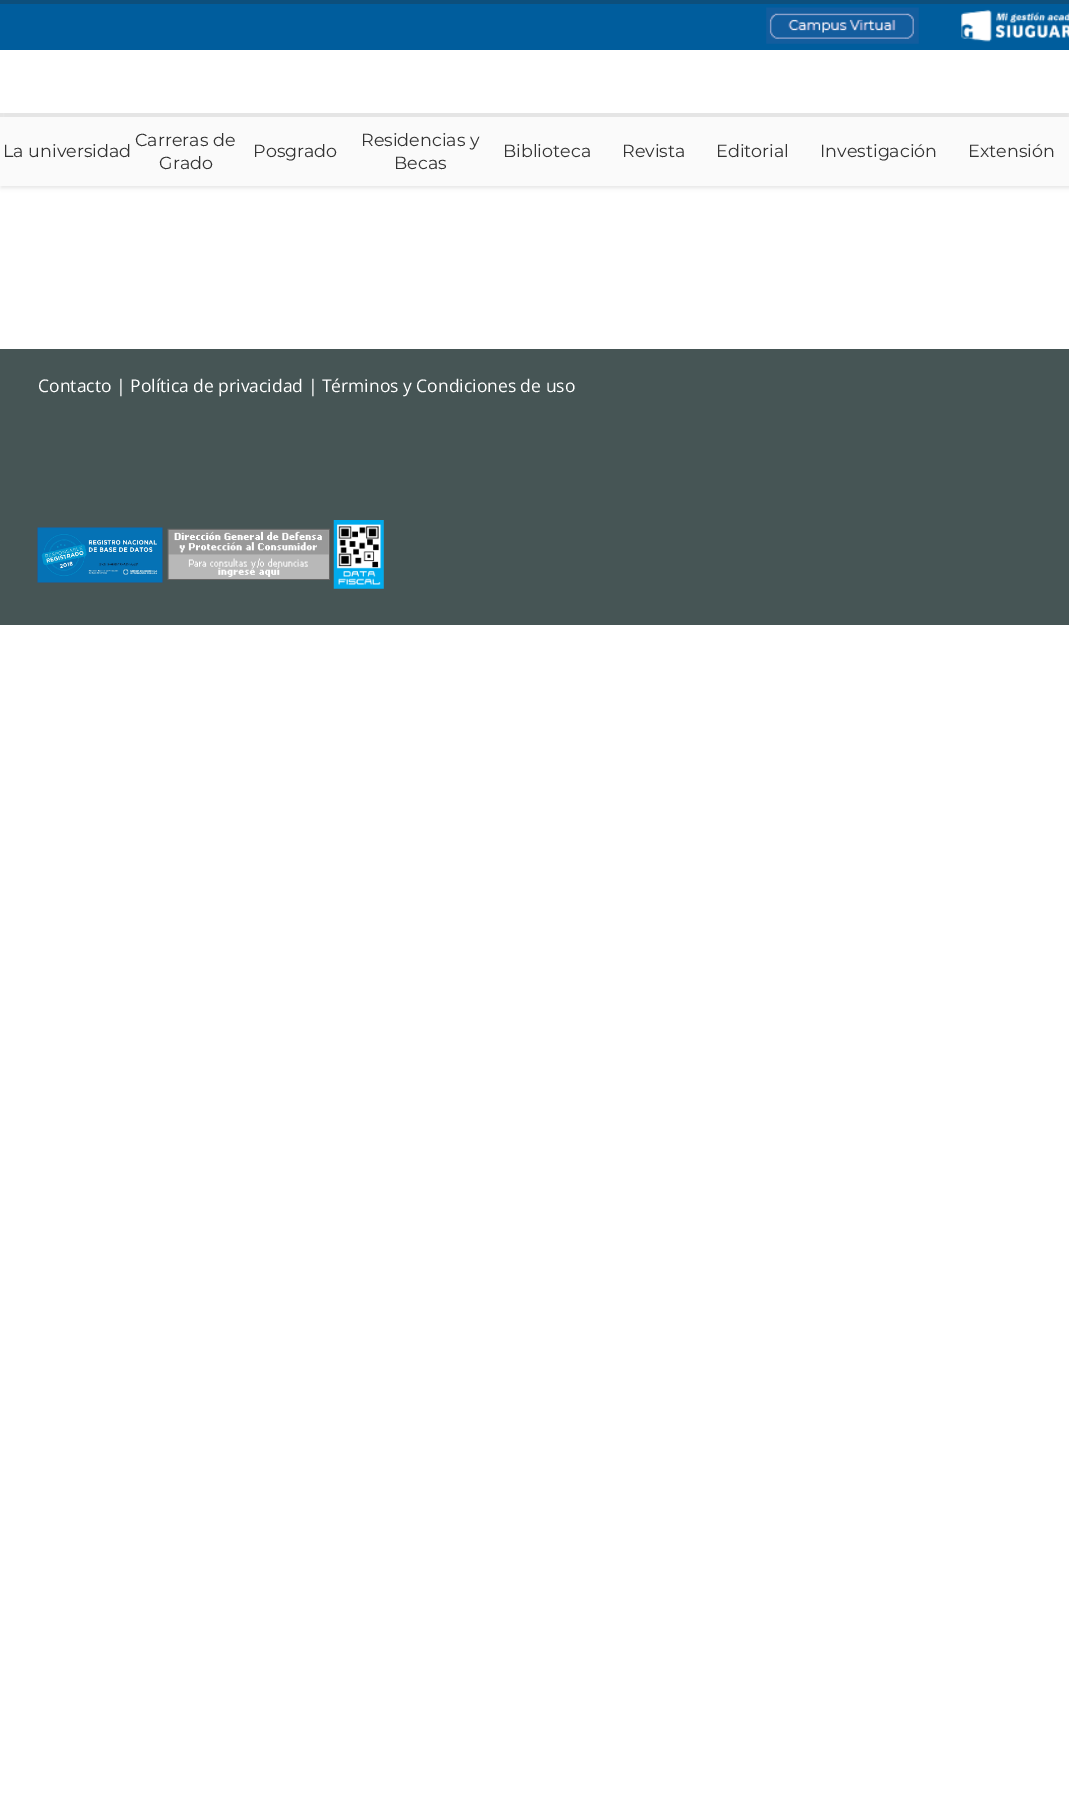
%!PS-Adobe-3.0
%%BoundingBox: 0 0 1069 1804
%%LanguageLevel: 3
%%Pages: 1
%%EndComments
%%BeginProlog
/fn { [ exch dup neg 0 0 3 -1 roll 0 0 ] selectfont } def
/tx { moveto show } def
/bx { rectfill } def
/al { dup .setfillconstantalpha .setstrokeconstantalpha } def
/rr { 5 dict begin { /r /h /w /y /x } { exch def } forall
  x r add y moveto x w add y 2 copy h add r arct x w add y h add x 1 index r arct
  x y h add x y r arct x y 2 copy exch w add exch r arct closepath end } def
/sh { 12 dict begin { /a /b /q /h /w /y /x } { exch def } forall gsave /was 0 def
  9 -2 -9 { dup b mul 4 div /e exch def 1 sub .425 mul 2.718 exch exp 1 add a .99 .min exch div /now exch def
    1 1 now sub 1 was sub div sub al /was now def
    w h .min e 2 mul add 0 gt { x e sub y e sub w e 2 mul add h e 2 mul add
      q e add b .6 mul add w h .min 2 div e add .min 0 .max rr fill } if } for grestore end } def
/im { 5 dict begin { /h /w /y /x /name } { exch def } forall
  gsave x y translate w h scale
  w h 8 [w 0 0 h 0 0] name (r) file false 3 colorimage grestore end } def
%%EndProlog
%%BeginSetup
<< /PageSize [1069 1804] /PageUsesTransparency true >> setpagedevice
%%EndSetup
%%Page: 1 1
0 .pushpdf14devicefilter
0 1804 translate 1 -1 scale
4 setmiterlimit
1 setgray
0 0 1069 1804 bx
0 setgray
1 1 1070 187 0 2 0.1 sh
0.051 0.31 0.486 setrgbcolor
0 0 1069 4 bx
0.98 setgray
0 117 1069 69 bx
0 0.365 0.616 setrgbcolor
0 4 1069 46 bx
(image0.raw) 766 7 153 37 im
(image1.raw) 961 9 108 33 im
1 setgray
0 50 1069 63 bx
0.902 setgray
0 113 3 4 bx
/Montserrat-Regular 17.5 fn
0.2 setgray
(La universidad) 3 157 tx
(Carreras de) 135 146 tx
(Grado) 159 169 tx
(Posgrado) 253 157 tx
(Residencias y) 361 146 tx
(Becas) 394 169 tx
(Biblioteca) 503 157 tx
(Revista) 622 157 tx
(Editorial) 716 157 tx
(Investigación) 820 157 tx
(Extensión) 968 157 tx
0.275 0.333 0.333 setrgbcolor
0 349 1069 276 bx
/OpenSans-Regular 17.5 fn
1 setgray
(Contacto | Política de privacidad | Términos y Condiciones de uso) 38 392 tx
(image2.raw) 37 527 126 56 im
(image3.raw) 167 528 163 52 im
(image4.raw) 333 520 51 69 im
.poppdf14devicefilter showpage
%%EOF
